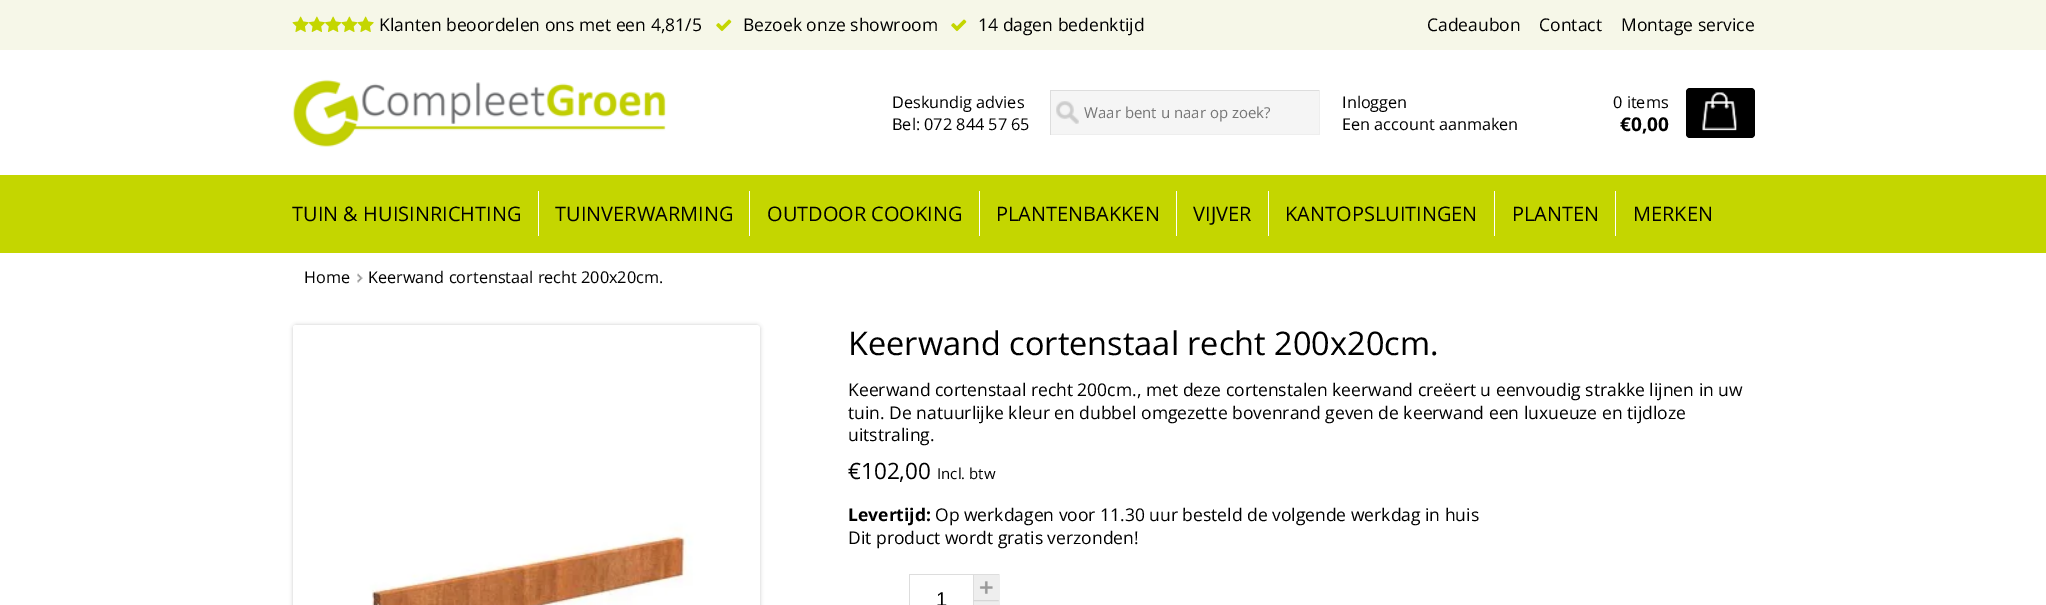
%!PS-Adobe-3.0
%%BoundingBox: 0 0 2046 605
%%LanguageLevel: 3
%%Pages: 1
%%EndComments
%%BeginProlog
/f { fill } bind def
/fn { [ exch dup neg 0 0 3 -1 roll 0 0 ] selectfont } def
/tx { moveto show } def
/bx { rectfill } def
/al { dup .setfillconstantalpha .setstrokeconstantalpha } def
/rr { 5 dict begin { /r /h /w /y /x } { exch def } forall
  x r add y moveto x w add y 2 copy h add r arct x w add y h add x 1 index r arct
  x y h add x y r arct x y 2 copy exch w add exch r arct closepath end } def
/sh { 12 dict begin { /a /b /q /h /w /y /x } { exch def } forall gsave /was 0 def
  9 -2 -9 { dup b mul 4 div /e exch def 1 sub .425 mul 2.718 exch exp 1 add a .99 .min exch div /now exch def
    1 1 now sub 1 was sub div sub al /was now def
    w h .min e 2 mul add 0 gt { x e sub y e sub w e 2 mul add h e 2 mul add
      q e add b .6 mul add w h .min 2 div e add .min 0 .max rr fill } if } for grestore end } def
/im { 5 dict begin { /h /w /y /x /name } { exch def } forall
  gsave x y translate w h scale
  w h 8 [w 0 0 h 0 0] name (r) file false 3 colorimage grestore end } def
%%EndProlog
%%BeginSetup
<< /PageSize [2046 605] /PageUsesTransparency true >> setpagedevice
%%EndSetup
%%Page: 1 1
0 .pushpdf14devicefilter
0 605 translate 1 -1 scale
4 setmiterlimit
1 setgray
0 0 2046 605 bx
0.965 0.969 0.91 setrgbcolor
0 0 2046 50 bx
(image0.raw) 292 16 17 16 im
(image1.raw) 308 16 17 16 im
(image2.raw) 325 16 17 16 im
(image3.raw) 341 16 17 16 im
(image4.raw) 357 16 17 16 im
/OpenSans-Regular 17.5 fn
0 setgray
(Klanten beoordelen ons met een 4,81/5) 379 31 tx
(image5.raw) 716 19 16 13 im
(Bezoek onze showroom) 743 31 tx
(image5.raw) 951 19 16 13 im
(14 dagen bedenktijd) 978 31 tx
(Cadeaubon) 1427 31 tx
(Contact) 1539 31 tx
(Montage service) 1621 31 tx
(image6.raw) 292 79 374 68 im
/OpenSans-Regular 16.25 fn
(Deskundig advies) 892 108 tx
(Bel: 072 844 57 65) 892 130 tx
0.961 setgray
1051 91 268 43 bx
(image7.raw) 1056 101 23 23 im
0.867 setgray
1050 90 270 1 bx
0.933 setgray
1319 90 1 45 bx
1050 134 270 1 bx
0.867 setgray
1050 90 1 45 bx
/OpenSans-Regular 15 fn
0.459 setgray
(Waar bent u naar op zoek?) 1084 118 tx
/OpenSans-Regular 16.25 fn
0 setgray
(Inloggen) 1342 108 tx
(Een account aanmaken) 1342 130 tx
(0 items) 1613 108 tx
/OpenSans-Bold 19 fn
(€0,00) 1620 131 tx
1686 88 69 50 4 rr f
(image8.raw) 1702 92 35 39 im
0.769 0.839 0 setrgbcolor
0 175 2046 78 bx
1 setgray
538 191 1 45 bx
/OpenSans-Regular 20 fn
0 setgray
(TUIN & HUISINRICHTING) 292 221 tx
1 setgray
749 191 1 45 bx
0 setgray
(TUINVERWARMING) 555 221 tx
1 setgray
979 191 1 45 bx
0 setgray
(OUTDOOR COOKING) 767 221 tx
1 setgray
1176 191 1 45 bx
0 setgray
(PLANTENBAKKEN) 996 221 tx
1 setgray
1268 191 1 45 bx
0 setgray
(VIJVER) 1193 221 tx
1 setgray
1494 191 1 45 bx
0 setgray
(KANTOPSLUITINGEN) 1285 221 tx
1 setgray
1615 191 1 45 bx
0 setgray
(PLANTEN) 1512 221 tx
(MERKEN) 1633 221 tx
/OpenSans-Regular 16.25 fn
(Home) 304 283 tx
(image9.raw) 357 273 6 10 im
(Keerwand cortenstaal recht 200x20cm.) 368 283 tx
293 325 467 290 4 2 0.2 sh
(image10.raw) 293 325 467 280 im
/OpenSans-Regular 32.5 fn
(Keerwand cortenstaal recht 200x20cm.) 848 355 tx
/OpenSans-Regular 17.5 fn
(Keerwand cortenstaal recht 200cm., met deze cortenstalen keerwand creëert u eenvoudig strakke lijnen in uw) 848 396 tx
(tuin. De natuurlijke kleur en dubbel omgezette bovenrand geven de keerwand een luxueuze en tijdloze) 848 419 tx
(uitstraling.) 848 441 tx
/OpenSans-Regular 22.5 fn
(€102,00) 848 479 tx
/OpenSans-Regular 15 fn
(Incl. btw) 937 479 tx
/OpenSans-Bold 17.5 fn
(Levertijd:) 848 521 tx
/OpenSans-Regular 17.5 fn
(Op werkdagen voor 11.30 uur besteld de volgende werkdag in huis) 935 521 tx
(Dit product wordt gratis verzonden!) 848 544 tx
0.933 setgray
974 575 25 30 bx
0.867 setgray
909 574 91 1 bx
0.933 setgray
999 574 1 31 bx
0.867 setgray
909 574 1 31 bx
/LiberationSans-Regular 20 fn
0 setgray
(1) 936 606 tx
0.867 setgray
973 575 1 30 bx
(image11.raw) 979 581 14 13 im
(image12.raw) 973 600 26 2 im
.poppdf14devicefilter showpage
%%EOF
